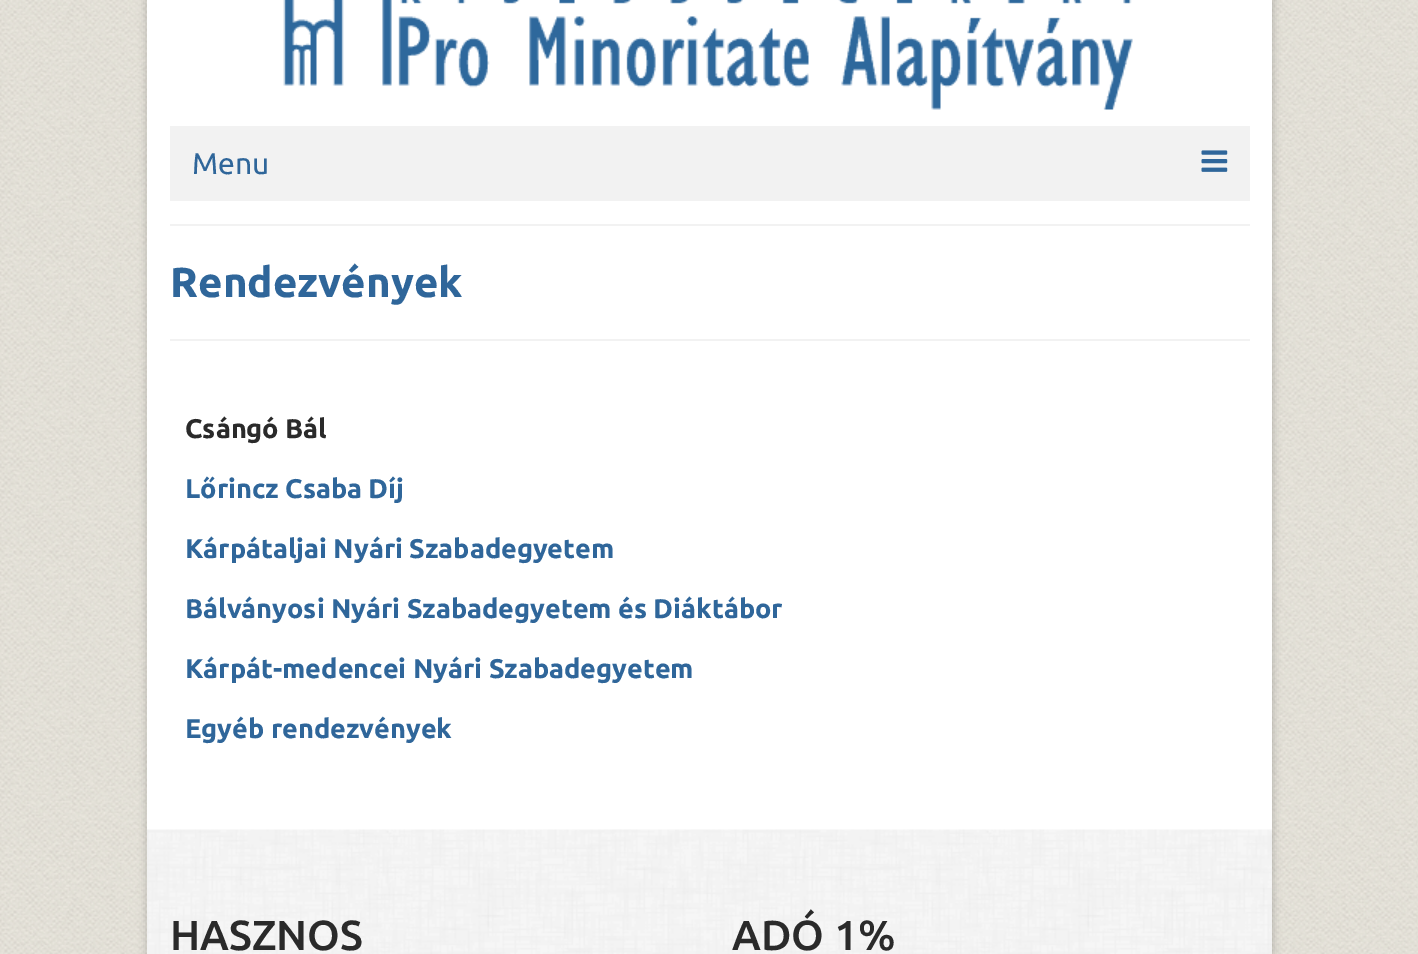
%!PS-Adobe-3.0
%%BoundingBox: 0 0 1418 954
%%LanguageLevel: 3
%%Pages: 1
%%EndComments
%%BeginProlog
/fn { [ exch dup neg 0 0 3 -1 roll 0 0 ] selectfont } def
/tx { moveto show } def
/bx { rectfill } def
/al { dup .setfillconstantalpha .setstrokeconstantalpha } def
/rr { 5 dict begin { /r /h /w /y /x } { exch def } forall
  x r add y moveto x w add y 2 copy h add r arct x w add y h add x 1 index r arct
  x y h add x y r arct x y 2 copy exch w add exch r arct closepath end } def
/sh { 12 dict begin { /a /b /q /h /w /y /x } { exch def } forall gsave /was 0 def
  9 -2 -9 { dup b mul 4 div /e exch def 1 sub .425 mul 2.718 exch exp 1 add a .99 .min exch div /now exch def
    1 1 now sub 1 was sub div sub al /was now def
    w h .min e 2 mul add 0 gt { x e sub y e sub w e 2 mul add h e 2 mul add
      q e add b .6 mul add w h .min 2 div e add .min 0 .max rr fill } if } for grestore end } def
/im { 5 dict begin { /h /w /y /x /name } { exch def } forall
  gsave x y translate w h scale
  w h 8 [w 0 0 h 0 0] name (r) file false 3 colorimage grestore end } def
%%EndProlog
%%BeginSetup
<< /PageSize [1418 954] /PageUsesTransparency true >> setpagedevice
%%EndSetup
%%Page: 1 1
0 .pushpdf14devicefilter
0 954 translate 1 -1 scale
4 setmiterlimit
1 setgray
0 0 1418 954 bx
(image0.raw) 0 0 1418 954 im
0 setgray
146 -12 1128 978 0 4 0.16 sh
1 setgray
147 0 1125 830 bx
(image1.raw) 283 0 850 110 im
0.949 setgray
170 126 1080 75 bx
/Ubuntu-Regular 30 fn
0.184 0.4 0.604 setrgbcolor
(Menu) 192 174 tx
(image2.raw) 1201 150 27 22 im
0.949 setgray
170 224 1080 2 bx
170 339 1080 2 bx
/Ubuntu-Bold 42 fn
0.184 0.4 0.604 setrgbcolor
(Rendezvények) 170 297 tx
/Ubuntu-Bold 27 fn
0.165 setgray
(Csángó Bál) 185 438 tx
0.184 0.4 0.604 setrgbcolor
(Lőrincz Csaba Díj) 185 498 tx
(Kárpátaljai Nyári Szabadegyetem) 185 558 tx
(Bálványosi Nyári Szabadegyetem és Diáktábor) 185 618 tx
(Kárpát-medencei Nyári Szabadegyetem) 185 678 tx
(Egyéb rendezvények) 185 738 tx
(image3.raw) 147 829 1125 125 im
/Ubuntu-Medium 42 fn
0.165 setgray
(HASZNOS) 170 950 tx
(ADÓ 1%) 732 950 tx
.poppdf14devicefilter showpage
%%EOF
